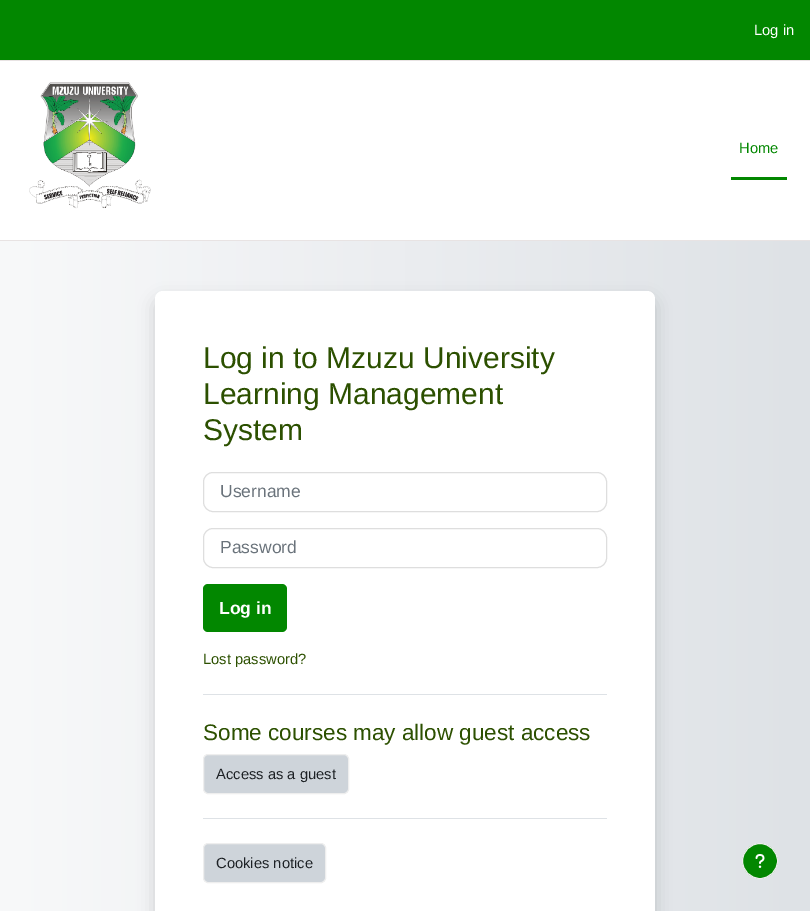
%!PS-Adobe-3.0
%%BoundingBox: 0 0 810 911
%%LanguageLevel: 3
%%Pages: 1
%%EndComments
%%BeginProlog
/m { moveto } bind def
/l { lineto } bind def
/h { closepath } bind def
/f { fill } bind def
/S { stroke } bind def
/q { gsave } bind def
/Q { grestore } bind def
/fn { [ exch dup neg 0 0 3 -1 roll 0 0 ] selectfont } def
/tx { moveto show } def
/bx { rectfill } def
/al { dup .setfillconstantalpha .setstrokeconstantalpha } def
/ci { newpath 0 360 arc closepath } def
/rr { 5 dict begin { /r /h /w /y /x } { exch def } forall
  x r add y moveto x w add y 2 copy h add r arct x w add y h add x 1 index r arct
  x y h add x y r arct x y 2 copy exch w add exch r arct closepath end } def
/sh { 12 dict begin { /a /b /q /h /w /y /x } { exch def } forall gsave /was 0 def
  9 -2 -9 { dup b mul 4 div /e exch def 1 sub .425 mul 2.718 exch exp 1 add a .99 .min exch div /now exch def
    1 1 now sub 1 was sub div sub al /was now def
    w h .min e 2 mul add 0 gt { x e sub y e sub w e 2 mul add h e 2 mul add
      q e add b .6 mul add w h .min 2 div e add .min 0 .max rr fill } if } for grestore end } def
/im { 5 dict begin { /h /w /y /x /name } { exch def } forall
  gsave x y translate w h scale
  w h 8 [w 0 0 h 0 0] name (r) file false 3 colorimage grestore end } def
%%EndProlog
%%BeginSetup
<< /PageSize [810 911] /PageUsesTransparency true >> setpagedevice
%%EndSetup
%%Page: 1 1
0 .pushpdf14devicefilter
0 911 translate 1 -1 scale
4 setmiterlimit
1 setgray
0 0 810 911 bx
0.008 0.529 0 setrgbcolor
0 0 810 60 bx
0.91 0.89 0.89 setrgbcolor
0 60 810 1 bx
/LiberationSans-Regular 14.75 fn
1 setgray
(Log in) 754 35 tx
0.91 0.89 0.89 setrgbcolor
0 240 810 1 bx
(image0.raw) 29 82 122 127 im
0.008 0.529 0 setrgbcolor
731 177 56 3 bx
(Home) 739 153 tx
q 0 241 m 810 241 l 810 911 l 0 911 l h clip newpath
<< /ShadingType 2 /ColorSpace /DeviceRGB /Coords [0 627 810 627] /Extend [true true] /Function << /FunctionType 2 /Domain [0 1] /C0 [0.973 0.976 0.98] /C1 [0.871 0.886 0.902] /N 1 >> >> shfill Q
0 setgray
155 299 500 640 8 8 0.15 sh
1 setgray
155 291 500 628 8 rr f
/LiberationSans-Regular 30 fn
0.173 0.314 0 setrgbcolor
(Log in to Mzuzu University) 203 368 tx
(Learning Management) 203 404 tx
(System) 203 440 tx
0.871 setgray
203.5 472.5 403 39 9.5 rr S
/LiberationSans-Regular 17.5 fn
0.416 0.451 0.482 setrgbcolor
(Username) 220 497 tx
0.871 setgray
203.5 528.5 403 39 9.5 rr S
0.416 0.451 0.482 setrgbcolor
(Password) 220 553 tx
0.008 0.529 0 setrgbcolor
203 584 84 48 5 rr f
/LiberationSans-Bold 17.5 fn
1 setgray
(Log in) 219 614 tx
/LiberationSans-Regular 14.75 fn
0.173 0.314 0 setrgbcolor
(Lost password?) 203 664 tx
0.871 0.886 0.902 setrgbcolor
203 694 404 1 bx
/LiberationSans-Regular 22.5 fn
0.173 0.314 0 setrgbcolor
(Some courses may allow guest access) 203 740 tx
0.808 0.831 0.855 setrgbcolor
203.5 754.5 145 39 4.5 rr q f Q
0.933 setgray
S
/LiberationSans-Regular 14.75 fn
0.114 0.129 0.145 setrgbcolor
(Access as a guest) 216 779 tx
0.871 0.886 0.902 setrgbcolor
203 818 404 1 bx
0.808 0.831 0.855 setrgbcolor
203.5 843.5 122 39 4.5 rr q f Q
0.933 setgray
S
0.114 0.129 0.145 setrgbcolor
(Cookies notice) 216 868 tx
0.008 0.529 0 setrgbcolor
760 861 17.5 ci q f Q
0.933 setgray
S
(image1.raw) 755 854 10 14 im
.poppdf14devicefilter showpage
%%EOF
